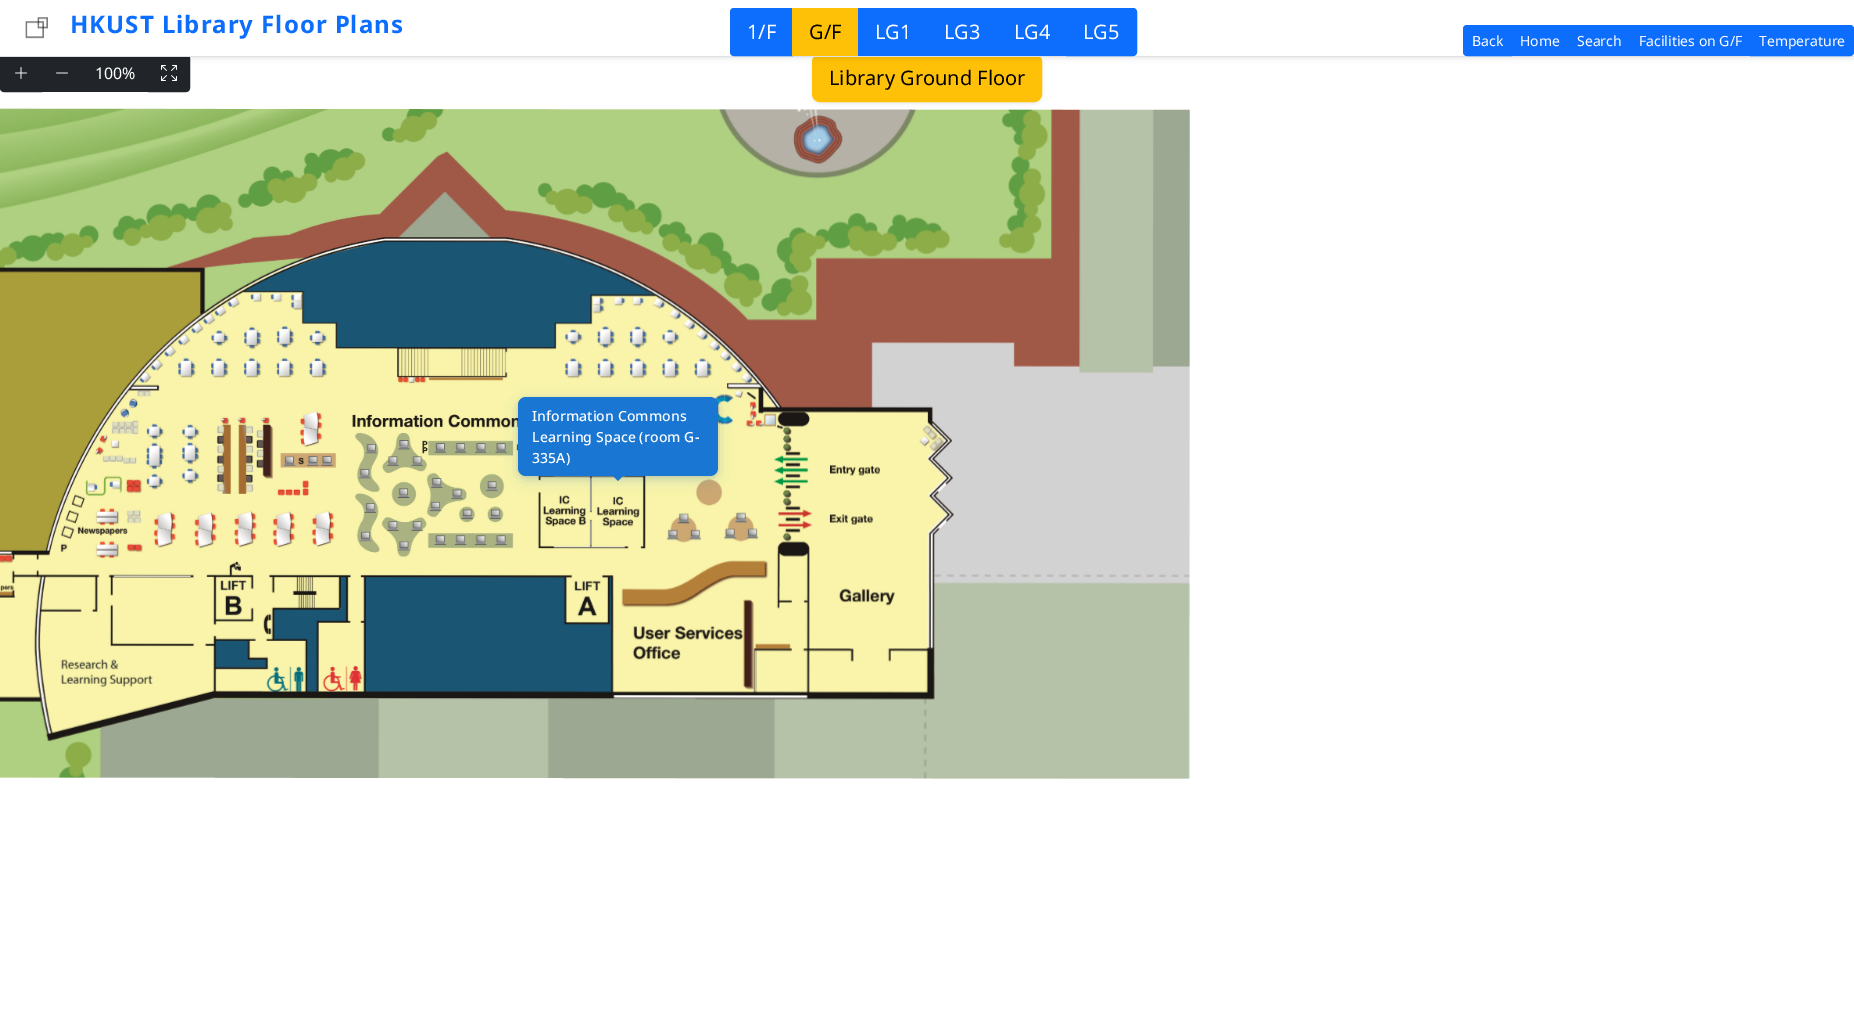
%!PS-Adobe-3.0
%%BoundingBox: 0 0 1854 1032
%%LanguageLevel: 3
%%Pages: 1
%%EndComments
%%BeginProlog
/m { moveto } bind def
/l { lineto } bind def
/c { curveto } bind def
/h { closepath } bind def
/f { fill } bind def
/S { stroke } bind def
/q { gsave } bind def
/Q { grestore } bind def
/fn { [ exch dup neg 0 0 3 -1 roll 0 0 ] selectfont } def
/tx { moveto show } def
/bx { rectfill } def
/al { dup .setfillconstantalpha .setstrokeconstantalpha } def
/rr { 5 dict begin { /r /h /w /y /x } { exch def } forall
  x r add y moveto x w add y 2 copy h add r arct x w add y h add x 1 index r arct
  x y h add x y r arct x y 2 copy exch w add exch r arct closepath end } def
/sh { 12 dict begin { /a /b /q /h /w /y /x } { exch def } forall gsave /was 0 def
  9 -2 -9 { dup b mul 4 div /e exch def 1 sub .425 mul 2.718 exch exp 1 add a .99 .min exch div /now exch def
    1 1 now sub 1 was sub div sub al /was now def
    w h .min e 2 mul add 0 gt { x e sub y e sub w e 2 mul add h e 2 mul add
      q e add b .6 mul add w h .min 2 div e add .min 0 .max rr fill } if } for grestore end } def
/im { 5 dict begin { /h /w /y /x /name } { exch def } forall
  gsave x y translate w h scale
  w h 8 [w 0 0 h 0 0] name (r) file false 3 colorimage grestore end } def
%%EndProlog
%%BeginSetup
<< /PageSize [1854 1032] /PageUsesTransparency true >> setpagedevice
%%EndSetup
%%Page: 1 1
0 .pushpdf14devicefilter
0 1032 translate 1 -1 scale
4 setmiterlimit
1 setgray
0 0 1854 1032 bx
0.129 0.145 0.161 setrgbcolor
4 54.5 m 41.5 54.5 l 41.5 91.5 l 4 91.5 l 2 91.5 0.5 90 0.5 88 c 0.5 58 l 0.5 56 2 54.5 4 54.5 c h q f Q
S
42 57 106 35 bx
148.5 54.5 m 186 54.5 l 188 54.5 189.5 56 189.5 58 c 189.5 88 l 189.5 90 188 91.5 186 91.5 c 148.5 91.5 l h q f Q
S
(image3.raw) 161 65 16 16 im
(image4.raw) 0 108 1190 671 im
0 setgray
812 56 230 48 8 2 0.07 sh
1 0.757 0.027 setrgbcolor
812.5 54.5 229 47 7.5 rr q f Q
S
0 setgray
0 2 1854 57 0 2 0.07 sh
1 setgray
0 0 1854 56 bx
0.871 0.886 0.902 setrgbcolor
0 56 1854 1 bx
(image0.raw) 25 17 23 22 im
/NotoSans-Bold 24 fn
0.051 0.431 0.992 setrgbcolor
70 33 m 1 0 (HKUST Library Floor Plans) ashow
734 8.5 m 792.5 8.5 l 792.5 55.5 l 734 55.5 l 732 55.5 730.5 54 730.5 52 c 730.5 12 l 730.5 10 732 8.5 734 8.5 c h q f Q
S
/NotoSans-Regular 20 fn
1 setgray
(1/F) 747 39 tx
1 0.757 0.027 setrgbcolor
792 8 66 48 bx
0 setgray
(G/F) 809 39 tx
0.051 0.431 0.992 setrgbcolor
858 8 208 48 bx
1 setgray
(LG1) 875 39 tx
(LG3) 944 39 tx
(LG4) 1014 39 tx
0.051 0.431 0.992 setrgbcolor
1066.5 8.5 m 1133 8.5 l 1135 8.5 1136.5 10 1136.5 12 c 1136.5 52 l 1136.5 54 1135 55.5 1133 55.5 c 1066.5 55.5 l h q f Q
S
1 setgray
(LG5) 1083 39 tx
0.051 0.431 0.992 setrgbcolor
1467 25.5 m 1511.5 25.5 l 1511.5 55.5 l 1467 55.5 l 1465 55.5 1463.5 54 1463.5 52 c 1463.5 29 l 1463.5 27 1465 25.5 1467 25.5 c h q f Q
S
/NotoSans-Regular 14 fn
1 setgray
(Back) 1472 46 tx
0.051 0.431 0.992 setrgbcolor
1512 25 238 31 bx
1 setgray
(Home) 1520 46 tx
(Search) 1577 46 tx
(Facilities on G/F) 1639 46 tx
0.051 0.431 0.992 setrgbcolor
1750.5 25.5 m 1850 25.5 l 1852 25.5 1853.5 27 1853.5 29 c 1853.5 52 l 1853.5 54 1852 55.5 1850 55.5 c 1750.5 55.5 l h q f Q
S
1 setgray
(Temperature) 1759 46 tx
(image1.raw) 15 67 12 12 im
(image2.raw) 56 72 12 2 im
/NotoSans-Regular 16 fn
(100%) 95 79 tx
/NotoSans-Regular 20 fn
0 setgray
(Library Ground Floor) 829 85 tx
0.235 setgray
518 399 200 79 8 2.5 0.12 sh
0.098 0.463 0.824 setrgbcolor
518 401 200 79 8 8 0.18 sh
518 397 200 79 8 rr f
/NotoSans-Medium 14 fn
1 setgray
532 421 m 0.1 0 (Information Commons) ashow
532 442 m 0.1 0 (Learning Space \(room G-) ashow
532 463 m 0.1 0 (335A\)) ashow
0.098 0.463 0.824 setrgbcolor
612 475 m 624 475 l 618 481 l h f
.poppdf14devicefilter showpage
%%EOF
